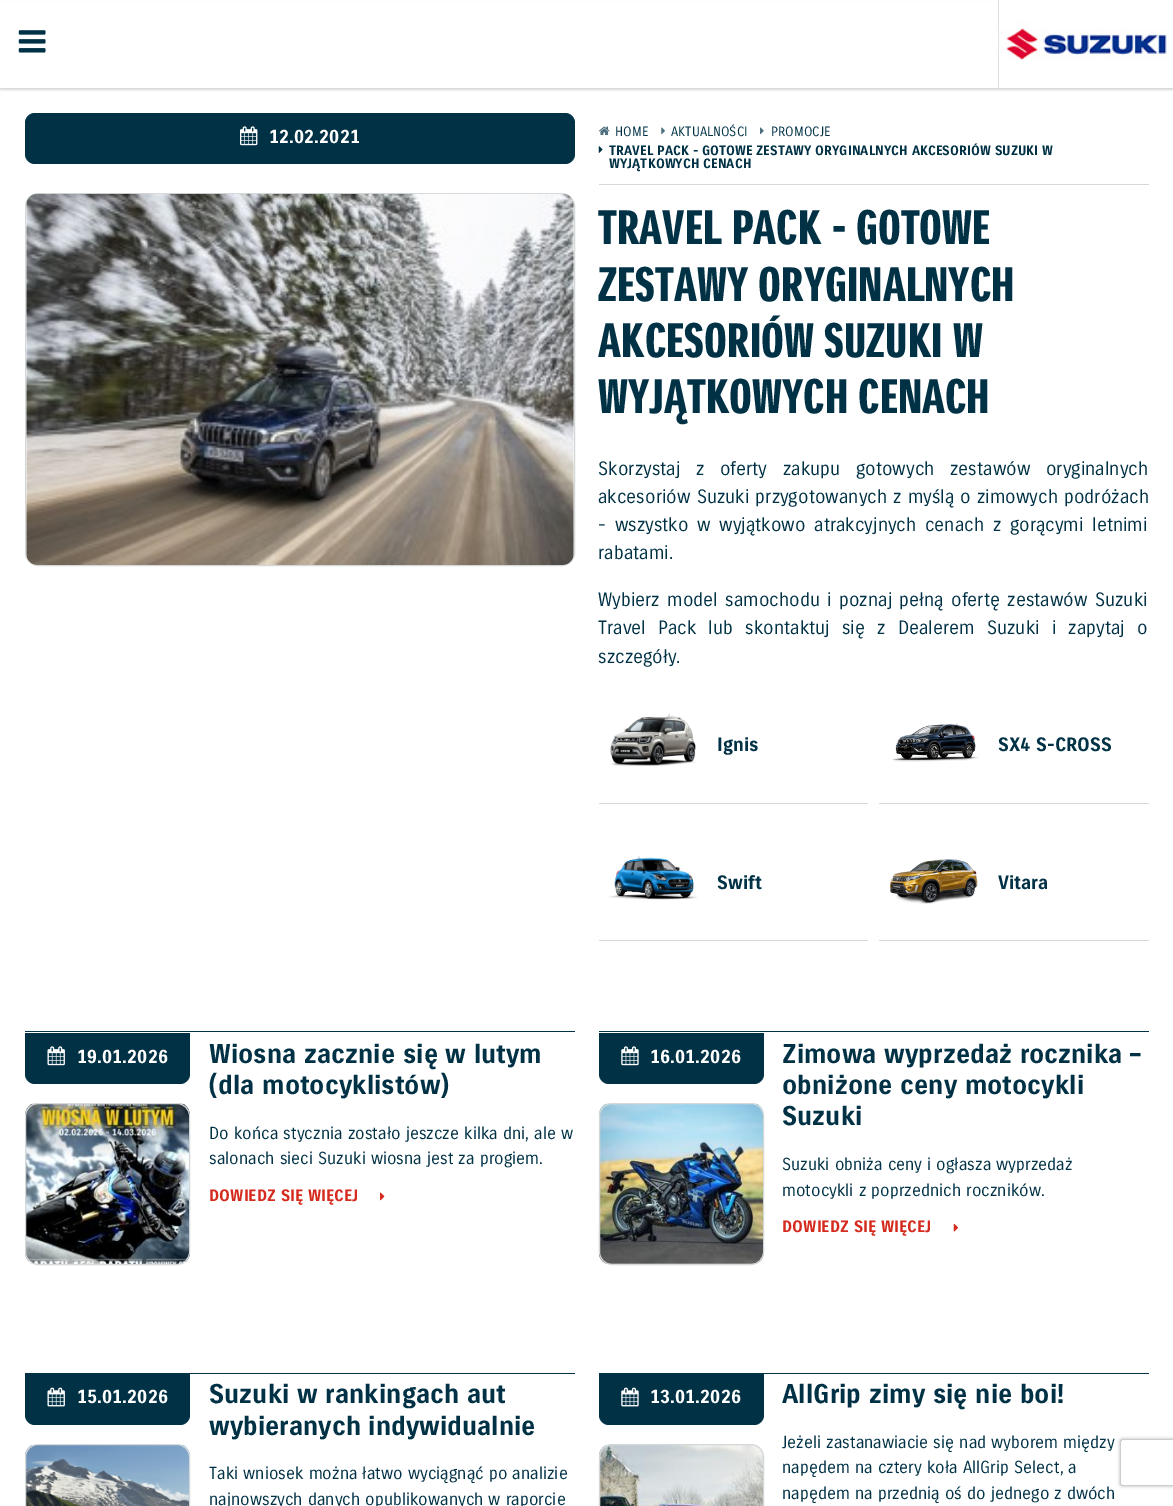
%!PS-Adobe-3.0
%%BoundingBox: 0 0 1173 1506
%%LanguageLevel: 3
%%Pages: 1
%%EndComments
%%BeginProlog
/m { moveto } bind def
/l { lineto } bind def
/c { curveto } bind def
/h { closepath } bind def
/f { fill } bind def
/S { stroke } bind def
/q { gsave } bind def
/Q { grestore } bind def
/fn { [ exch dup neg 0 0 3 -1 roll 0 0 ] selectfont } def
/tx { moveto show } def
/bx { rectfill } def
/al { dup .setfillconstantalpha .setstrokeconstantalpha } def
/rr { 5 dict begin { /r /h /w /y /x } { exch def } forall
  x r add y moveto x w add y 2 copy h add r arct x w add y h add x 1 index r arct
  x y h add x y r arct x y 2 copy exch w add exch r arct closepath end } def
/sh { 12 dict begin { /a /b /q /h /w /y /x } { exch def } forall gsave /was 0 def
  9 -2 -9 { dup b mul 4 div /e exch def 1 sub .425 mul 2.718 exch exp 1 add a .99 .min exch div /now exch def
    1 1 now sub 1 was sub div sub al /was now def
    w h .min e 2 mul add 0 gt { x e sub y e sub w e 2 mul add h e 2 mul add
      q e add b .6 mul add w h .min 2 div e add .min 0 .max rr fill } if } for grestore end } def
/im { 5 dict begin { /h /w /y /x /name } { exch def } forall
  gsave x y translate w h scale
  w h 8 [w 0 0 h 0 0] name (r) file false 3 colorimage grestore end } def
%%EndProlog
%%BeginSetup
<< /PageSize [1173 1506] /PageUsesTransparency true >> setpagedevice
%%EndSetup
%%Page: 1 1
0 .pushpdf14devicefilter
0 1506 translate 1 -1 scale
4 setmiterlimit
1 setgray
0 0 1173 1506 bx
0 setgray
0 3 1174 87 0 1 0.15 sh
1 setgray
0 2 1173 86 bx
(image0.raw) 18 30 28 23 im
0.831 0.847 0.847 setrgbcolor
998 0 1 88 bx
(image1.raw) 998 0 169 88 im
0 0.192 0.271 setrgbcolor
25 113 550 51 10 rr f
(image2.raw) 240 126 18 20 im
/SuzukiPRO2-Regular 18.75 fn
1 setgray
(12.02.2021) 269 143 tx
0.831 0.847 0.847 setrgbcolor
25.5 193.5 549 372 12.5 rr S
(image3.raw) 26 193 548 372 im
599 184 550 1 bx
(image4.raw) 599 126 11 9 im
/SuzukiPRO-Regular 13.1 fn
0 0.192 0.271 setrgbcolor
(HOME) 615 136 tx
(image5.raw) 661 127 4 8 im
(AKTUALNOŚCI) 671 136 tx
(image6.raw) 760 127 4 8 im
(PROMOCJE) 771 136 tx
(image7.raw) 598 146 5 7 im
/SuzukiPRO2-Regular 13.1 fn
(TRAVEL PACK - GOTOWE ZESTAWY ORYGINALNYCH AKCESORIÓW SUZUKI W) 609 155 tx
(WYJĄTKOWYCH CENACH) 609 168 tx
/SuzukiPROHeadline-Bold 46.9 fn
(TRAVEL PACK - GOTOWE) 598 244 tx
(ZESTAWY ORYGINALNYCH) 598 301 tx
(AKCESORIÓW SUZUKI W) 598 357 tx
(WYJĄTKOWYCH CENACH) 598 413 tx
/SuzukiPRO-Regular 18.75 fn
598 475 m 10 0 32 (Skorzystaj z oferty zakupu gotowych zestawów oryginalnych) widthshow
598 503 m 0.5 0 32 (akcesoriów Suzuki przygotowanych z myślą o zimowych podróżach) widthshow
598 531 m 3 0 32 (- wszystko w wyjątkowo atrakcyjnych cenach z gorącymi letnimi) widthshow
(rabatami.) 598 559 tx
598 606 m 1.75 0 32 (Wybierz model samochodu i poznaj pełną ofertę zestawów Suzuki) widthshow
598 634 m 6.5 0 32 (Travel Pack lub skontaktuj się z Dealerem Suzuki i zapytaj o) widthshow
(szczegóły.) 598 663 tx
0.831 0.847 0.847 setrgbcolor
599 803 269 1 bx
(image8.raw) 610 713 86 54 im
/SuzukiPRO2-Regular 18.75 fn
0 0.192 0.271 setrgbcolor
(Ignis) 717 751 tx
0.831 0.847 0.847 setrgbcolor
879 803 270 1 bx
(image9.raw) 892 723 87 39 im
0 0.192 0.271 setrgbcolor
(SX4 S-CROSS) 998 751 tx
0.831 0.847 0.847 setrgbcolor
599 940 269 1 bx
(image10.raw) 608 856 90 44 im
0 0.192 0.271 setrgbcolor
(Swift) 717 889 tx
0.831 0.847 0.847 setrgbcolor
879 940 270 1 bx
(image11.raw) 890 859 88 45 im
0 0.192 0.271 setrgbcolor
(Vitara) 998 889 tx
25 1031 550 1 bx
25 1033 m 190 1033 l 190 1074 l 190 1079.5 185.5 1084 180 1084 c 35 1084 l 29.5 1084 25 1079.5 25 1074 c h f
(image12.raw) 47 1046 18 20 im
1 setgray
(19.01.2026) 77 1063 tx
/SuzukiPRO2-Regular 26.25 fn
0 0.192 0.271 setrgbcolor
(Wiosna zacznie się w lutym) 209 1063 tx
(\(dla motocyklistów\)) 209 1094 tx
/SuzukiPRO-Regular 16.9 fn
(Do końca stycznia zostało jeszcze kilka dni, ale w) 209 1139 tx
(salonach sieci Suzuki wiosna jest za progiem.) 209 1164 tx
/SuzukiPRO2-Regular 16 fn
0.835 0.169 0.118 setrgbcolor
(DOWIEDZ SIĘ WIĘCEJ) 209 1201 tx
(image13.raw) 380 1192 5 9 im
(image14.raw) 25 1103 165 161 im
0.831 0.847 0.847 setrgbcolor
25.5 1103.5 164 161 12.5 rr S
0 0.192 0.271 setrgbcolor
599 1031 550 1 bx
599 1033 m 764 1033 l 764 1074 l 764 1079.5 759.5 1084 754 1084 c 609 1084 l 603.5 1084 599 1079.5 599 1074 c h f
(image15.raw) 621 1046 18 20 im
/SuzukiPRO2-Regular 18.75 fn
1 setgray
(16.01.2026) 650 1063 tx
/SuzukiPRO2-Regular 26.25 fn
0 0.192 0.271 setrgbcolor
(Zimowa wyprzedaż rocznika –) 782 1063 tx
(obniżone ceny motocykli) 782 1094 tx
(Suzuki) 782 1125 tx
/SuzukiPRO-Regular 16.9 fn
(Suzuki obniża ceny i ogłasza wyprzedaż) 782 1170 tx
(motocykli z poprzednich roczników.) 782 1196 tx
/SuzukiPRO2-Regular 16 fn
0.835 0.169 0.118 setrgbcolor
(DOWIEDZ SIĘ WIĘCEJ) 782 1232 tx
(image16.raw) 953 1223 6 9 im
(image17.raw) 598 1103 166 161 im
0.831 0.847 0.847 setrgbcolor
599.5 1103.5 164 161 12.5 rr S
0 0.192 0.271 setrgbcolor
25 1373 550 1 bx
25 1374 m 190 1374 l 190 1415 l 190 1420.5 185.5 1425 180 1425 c 35 1425 l 29.5 1425 25 1420.5 25 1415 c h f
(image18.raw) 47 1387 18 20 im
/SuzukiPRO2-Regular 18.75 fn
1 setgray
(15.01.2026) 77 1403 tx
/SuzukiPRO2-Regular 26.25 fn
0 0.192 0.271 setrgbcolor
(Suzuki w rankingach aut) 209 1403 tx
(wybieranych indywidualnie) 209 1435 tx
/SuzukiPRO-Regular 16.9 fn
(Taki wniosek można łatwo wyciągnąć po analizie) 209 1479 tx
(najnowszych danych opublikowanych w raporcie) 209 1505 tx
(image19.raw) 25 1445 165 61 im
0.831 0.847 0.847 setrgbcolor
25.5 1444.5 164 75 12.5 rr S
0 0.192 0.271 setrgbcolor
599 1373 550 1 bx
599 1374 m 764 1374 l 764 1415 l 764 1420.5 759.5 1425 754 1425 c 609 1425 l 603.5 1425 599 1420.5 599 1415 c h f
(image20.raw) 621 1387 18 20 im
/SuzukiPRO2-Regular 18.75 fn
1 setgray
(13.01.2026) 650 1403 tx
/SuzukiPRO2-Regular 26.25 fn
0 0.192 0.271 setrgbcolor
(AllGrip zimy się nie boi!) 782 1403 tx
/SuzukiPRO-Regular 16.9 fn
(Jeżeli zastanawiacie się nad wyborem między) 782 1448 tx
(napędem na cztery koła AllGrip Select, a) 782 1473 tx
(napędem na przednią oś do jednego z dwóch) 782 1499 tx
(image21.raw) 598 1445 166 61 im
0.831 0.847 0.847 setrgbcolor
599.5 1444.5 164 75 12.5 rr S
q
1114 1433 m 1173 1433 l 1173 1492 l 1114 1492 l h 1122 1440 m 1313 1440 l 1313.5 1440 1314 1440.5 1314 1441 c 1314 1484 l 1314 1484.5 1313.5 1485 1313 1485 c 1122 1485 l 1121.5 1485 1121 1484.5 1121 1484 c 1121 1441 l 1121 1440.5 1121.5 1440 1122 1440 c h eoclip newpath
0.502 setgray
1121 1440 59 45 1 2 1 sh
Q
.poppdf14devicefilter showpage
%%EOF
